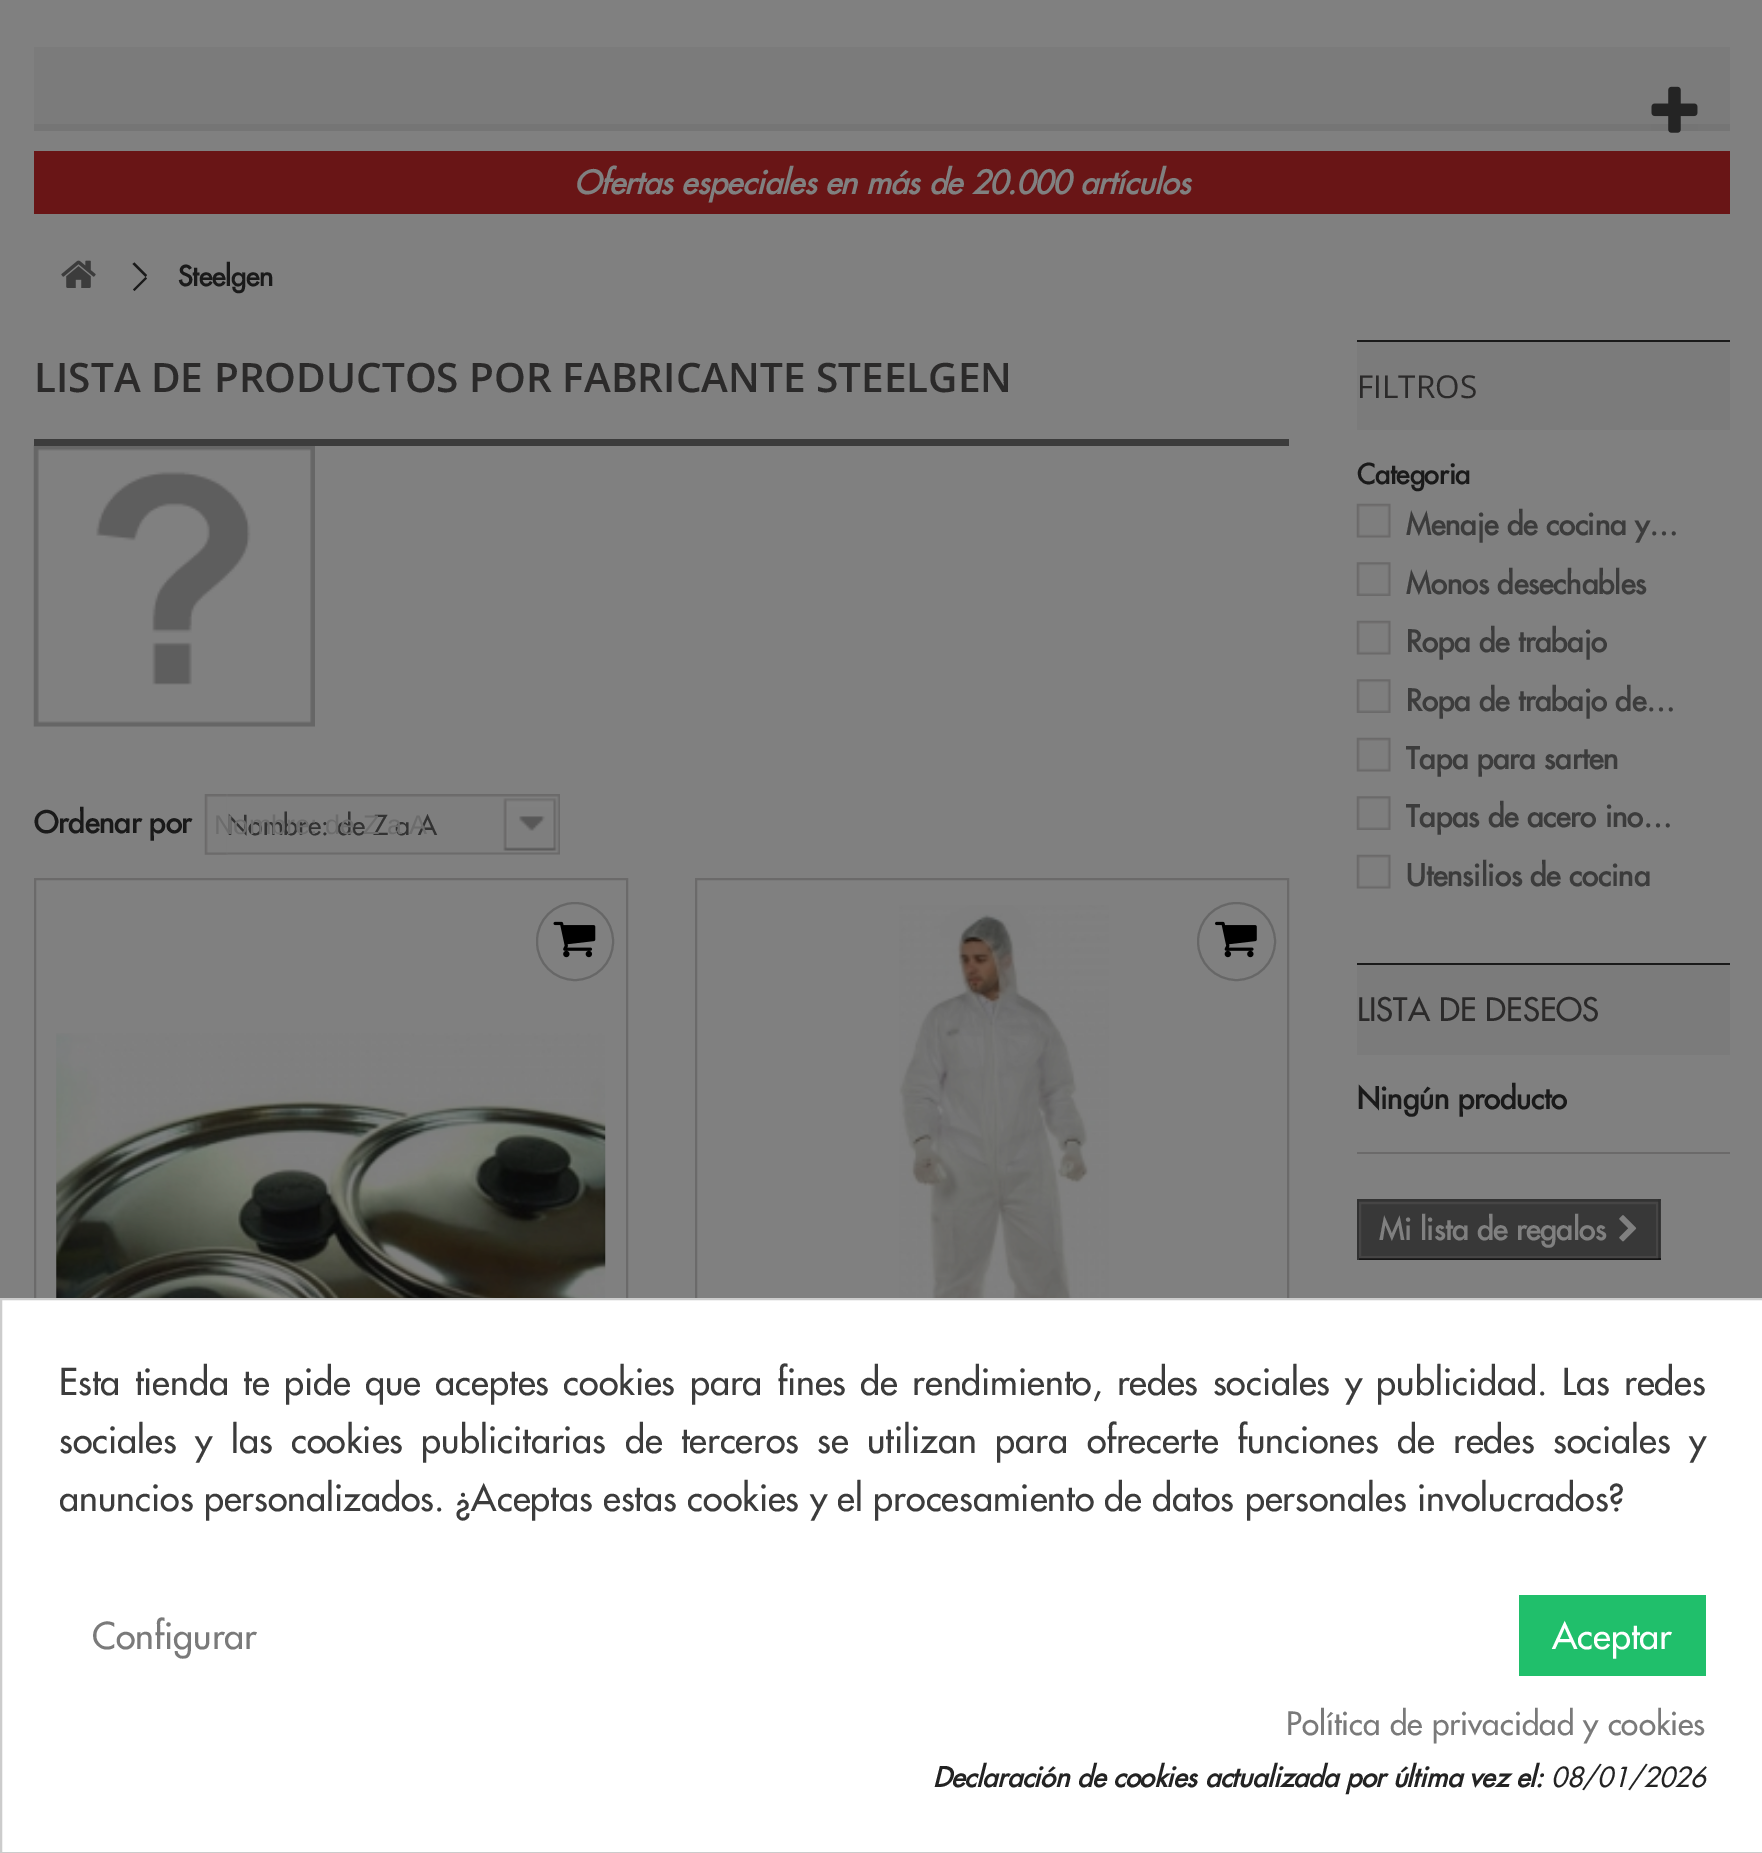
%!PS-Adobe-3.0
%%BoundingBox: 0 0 1762 1853
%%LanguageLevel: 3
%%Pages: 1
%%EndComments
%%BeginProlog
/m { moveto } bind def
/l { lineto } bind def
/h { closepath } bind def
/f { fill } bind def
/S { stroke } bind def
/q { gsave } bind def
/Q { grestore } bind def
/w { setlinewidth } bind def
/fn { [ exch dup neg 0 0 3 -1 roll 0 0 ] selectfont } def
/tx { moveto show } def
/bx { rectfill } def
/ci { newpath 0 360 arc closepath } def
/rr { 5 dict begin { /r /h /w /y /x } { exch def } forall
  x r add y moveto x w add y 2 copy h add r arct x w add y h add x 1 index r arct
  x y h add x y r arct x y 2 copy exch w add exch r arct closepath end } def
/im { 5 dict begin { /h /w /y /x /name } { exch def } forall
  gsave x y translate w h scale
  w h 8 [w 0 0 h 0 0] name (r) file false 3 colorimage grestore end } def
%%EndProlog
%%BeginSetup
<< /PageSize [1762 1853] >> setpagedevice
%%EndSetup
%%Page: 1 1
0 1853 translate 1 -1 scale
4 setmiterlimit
0.502 setgray
0 0 1762 1853 bx
0.482 setgray
34 47 1696 77 bx
0.459 setgray
34 124 1696 7 bx
(image0.raw) 1651 86 47 47 im
0.412 0.082 0.086 setrgbcolor
34 151 1696 63 bx
/Futura-BoldItalic 31.5 fn
0.502 setgray
(Ofertas especiales en más de 20.000 artículos) 574 194 tx
(image1.raw) 61 260 35 28 im
0.102 setgray
134.5 262.5 m 147 275 l 145.5 277 l 132.5 264 l h 145.5 277 m 147 278.5 l 134.5 291 l 133 289.5 l h f
/Futura-Bold 27 fn
(Steelgen) 178 286 tx
(image2.raw) 33 445 282 282 im
0.235 setgray
34 439 1255 7 bx
/OpenSans-SemiBold 40.5 fn
0.169 0.165 0.165 setrgbcolor
(LISTA DE PRODUCTOS POR FABRICANTE STEELGEN) 34 392 tx
/Futura-Bold 29.25 fn
0.102 setgray
(Ordenar por) 34 833 tx
(image3.raw) 204 794 24 61 im
(image4.raw) 227 794 333 61 im
/Futura-Regular 27 fn
0.2 setgray
(Nombre: de Z a A) 227 835 tx
/LiberationSans-Regular 27 fn
0.424 setgray
(Nombre: de Z a A) 214 834 tx
0.42 0.416 0.416 setrgbcolor
2 w
35 879 592 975 rectstroke
0.404 setgray
537 903 76 77 38 rr S
(image5.raw) 553 921 43 37 im
(image6.raw) 56 1033 550 265 im
0.42 0.416 0.416 setrgbcolor
696 879 592 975 rectstroke
(image7.raw) 899 905 210 393 im
0.404 setgray
1236.5 941.5 38.5 ci S
(image8.raw) 1215 921 42 37 im
0.482 setgray
1357 342 373 88 bx
0.102 setgray
1357 340 373 2 bx
/OpenSans-Regular 31.5 fn
0.169 0.165 0.165 setrgbcolor
(FILTROS) 1357 398 tx
/Futura-Bold 27 fn
0.102 setgray
(Categoria) 1357 484 tx
(image9.raw) 1356 503 35 35 im
/Futura-Bold 29.25 fn
0.235 setgray
(Menaje de cocina y…) 1406 535 tx
(image10.raw) 1356 562 35 34 im
(Monos desechables) 1406 594 tx
(image9.raw) 1356 620 35 35 im
(Ropa de trabajo) 1406 652 tx
(image10.raw) 1356 679 35 34 im
(Ropa de trabajo de…) 1406 711 tx
(image9.raw) 1356 737 35 35 im
(Tapa para sarten) 1406 769 tx
(image10.raw) 1356 796 35 34 im
(Tapas de acero ino…) 1406 827 tx
(image9.raw) 1356 854 35 35 im
(Utensilios de cocina) 1406 886 tx
0.482 setgray
1357 965 373 90 bx
0.102 setgray
1357 963 373 2 bx
/Futura-Regular 31.5 fn
0.169 0.165 0.165 setrgbcolor
(LISTA DE DESEOS) 1357 1021 tx
0.42 0.416 0.416 setrgbcolor
1357 1152 373 2 bx
/Futura-Bold 29.25 fn
0.102 setgray
(Ningún producto) 1357 1109 tx
0.22 setgray
1359 1201 302 57 bx
0.2 setgray
1357 1199 304 2 bx
0.188 setgray
1658 1199 2 61 bx
0.082 setgray
1357 1258 304 2 bx
0.188 setgray
1357 1199 2 61 bx
0.275 0.271 0.271 setrgbcolor
1360 1203 297 54 rectstroke
0.502 setgray
(Mi lista de regalos) 1379 1240 tx
(image11.raw) 1619 1215 18 27 im
1 setgray
1 1299 m 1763 1299 l 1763 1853 l 1 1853 l h q f Q
0.8 setgray
S
/Futura-Regular 36 fn
0.235 setgray
59 1395 m 4 0 32 (Esta tienda te pide que aceptes cookies para fines de rendimiento, redes sociales y publicidad. Las redes) widthshow
59 1453 m 8 0 32 (sociales y las cookies publicitarias de terceros se utilizan para ofrecerte funciones de redes sociales y) widthshow
(anuncios personalizados. ¿Aceptas estas cookies y el procesamiento de datos personales involucrados?) 59 1511 tx
0.478 setgray
(Configurar) 92 1649 tx
0.125 0.749 0.42 setrgbcolor
1519 1595 187 81 bx
1 setgray
(Aceptar) 1552 1649 tx
/Futura-Regular 31.5 fn
0.478 setgray
(Política de privacidad y cookies) 1286 1735 tx
/Futura-BoldItalic 27 fn
0.137 setgray
(Declaración de cookies actualizada por última vez el:) 933 1787 tx
/Futura-Italic 27 fn
(08/01/2026) 1551 1787 tx
showpage
%%EOF
